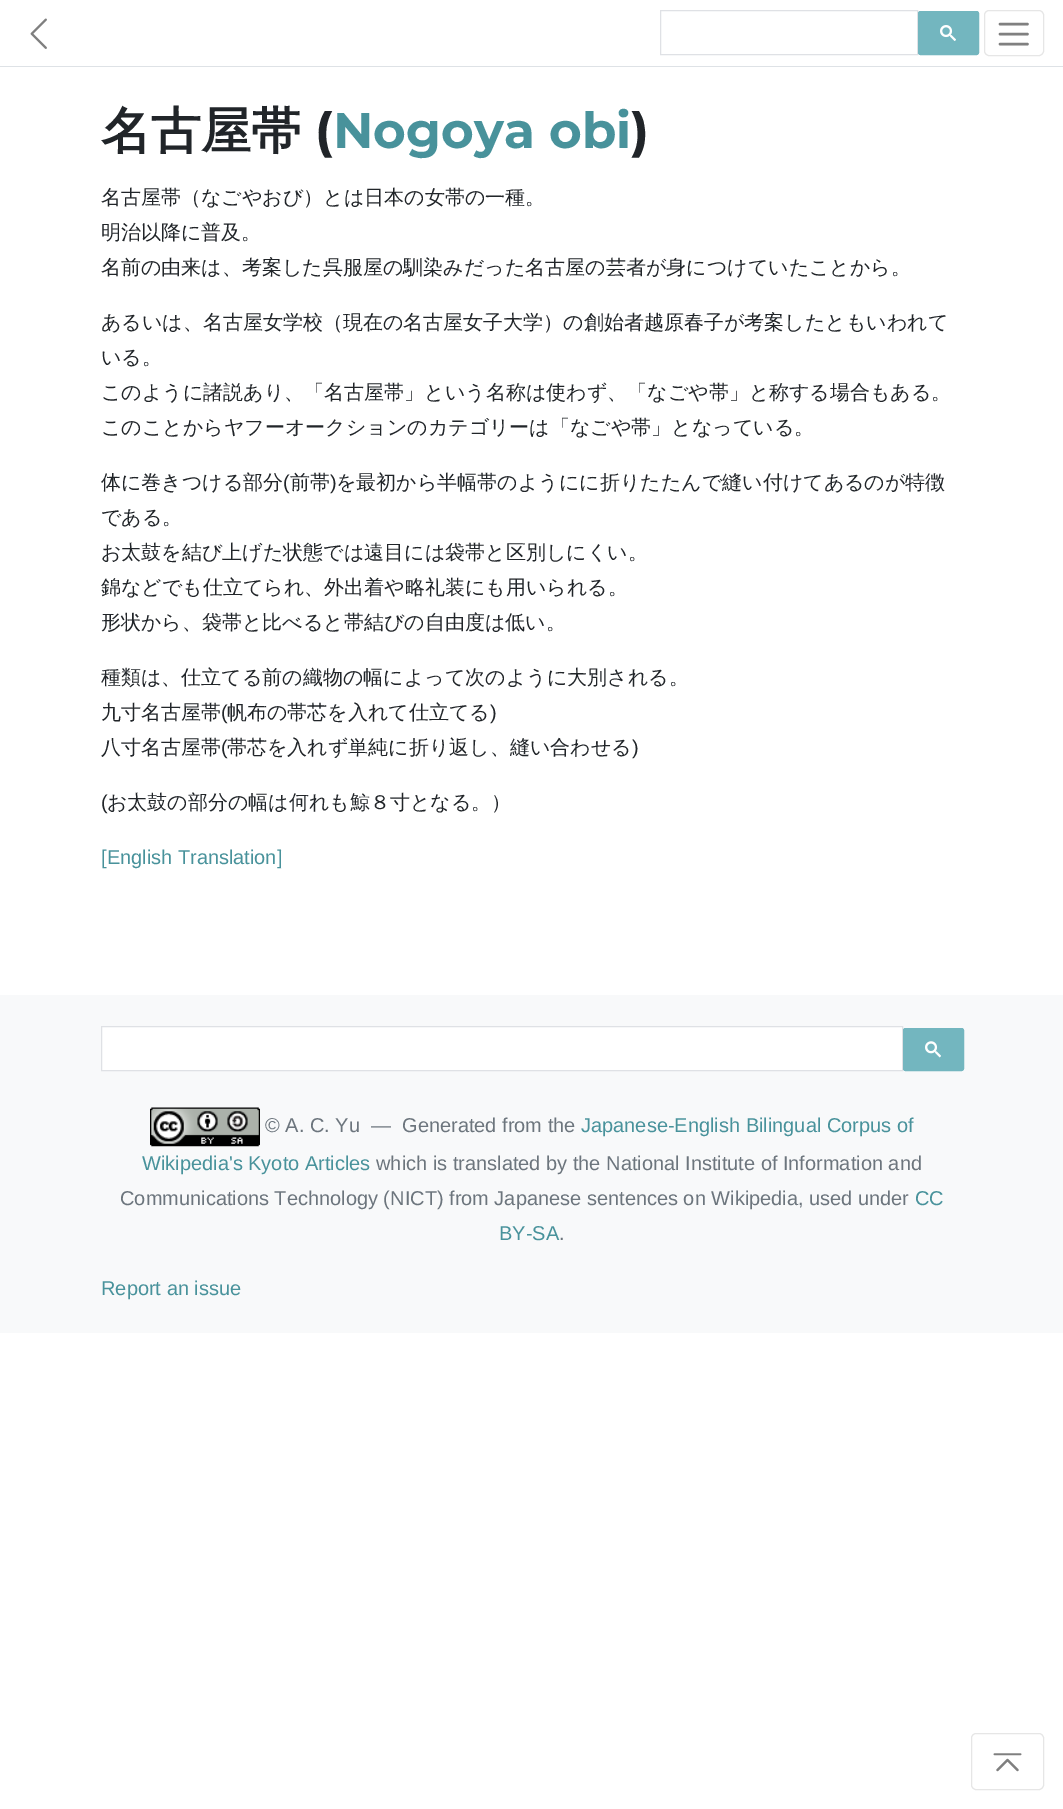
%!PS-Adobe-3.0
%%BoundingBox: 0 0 1063 1809
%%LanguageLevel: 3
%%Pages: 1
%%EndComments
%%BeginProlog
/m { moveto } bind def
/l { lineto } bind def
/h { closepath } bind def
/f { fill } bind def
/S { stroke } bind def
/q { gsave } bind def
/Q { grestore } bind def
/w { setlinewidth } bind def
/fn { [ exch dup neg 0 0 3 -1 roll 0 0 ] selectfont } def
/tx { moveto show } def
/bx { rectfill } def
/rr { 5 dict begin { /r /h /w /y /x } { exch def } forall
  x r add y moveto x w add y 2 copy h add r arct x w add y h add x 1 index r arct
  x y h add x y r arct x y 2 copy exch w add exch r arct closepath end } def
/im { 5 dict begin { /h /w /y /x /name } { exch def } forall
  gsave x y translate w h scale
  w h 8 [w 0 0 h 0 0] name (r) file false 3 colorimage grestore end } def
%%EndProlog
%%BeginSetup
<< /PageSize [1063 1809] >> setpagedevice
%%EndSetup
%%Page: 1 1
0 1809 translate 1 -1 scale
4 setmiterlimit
1 setgray
0 0 1063 1809 bx
0.871 0.886 0.902 setrgbcolor
0 66 1063 1 bx
(image0.raw) 30 18 17 31 im
0.875 0.882 0.898 setrgbcolor
660.5 10.5 257 44 rectstroke
0.451 0.714 0.749 setrgbcolor
918.5 11.5 60 43 2 rr q f Q
S
(image1.raw) 940 25 16 16 im
0.902 setgray
984.5 10.5 59 45 4.5 rr S
0.502 setgray
2.5 w
1 setlinecap
1000 24 m 1027.5 24 l 1000 34 m 1027.5 34 l 1000 44 m 1027.5 44 l S
/WenQuanYiZenHei-Bold 50 fn
0.129 0.145 0.161 setrgbcolor
(名古屋帯) 101 148 tx
/Montserrat-Bold 50 fn
(\() 315 148 tx
0.282 0.573 0.608 setrgbcolor
(Nogoya obi) 333 148 tx
0.129 0.145 0.161 setrgbcolor
(\)) 631 148 tx
/WenQuanYiZenHei-Medium 20 fn
(名古屋帯（なごやおび）とは日本の女帯の一種。) 101 204 tx
(明治以降に普及。) 101 239 tx
(名前の由来は、考案した呉服屋の馴染みだった名古屋の芸者が身につけていたことから。) 101 274 tx
(あるいは、名古屋女学校（現在の名古屋女子大学）の創始者越原春子が考案したともいわれて) 101 329 tx
(いる。) 101 364 tx
(このように諸説あり、「名古屋帯」という名称は使わず、「なごや帯」と称する場合もある。) 101 399 tx
(このことからヤフーオークションのカテゴリーは「なごや帯」となっている。) 101 434 tx
(体に巻きつける部分) 101 489 tx
/LiberationSans-Regular 20 fn
(\() 283 489 tx
/WenQuanYiZenHei-Medium 20 fn
(前帯) 290 489 tx
/LiberationSans-Regular 20 fn
(\)) 330 489 tx
/WenQuanYiZenHei-Medium 20 fn
(を最初から半幅帯のようにに折りたたんで縫い付けてあるのが特徴) 336 489 tx
(である。) 101 524 tx
(お太鼓を結び上げた状態では遠目には袋帯と区別しにくい。) 101 559 tx
(錦などでも仕立てられ、外出着や略礼装にも用いられる。) 101 594 tx
(形状から、袋帯と比べると帯結びの自由度は低い。) 101 629 tx
(種類は、仕立てる前の織物の幅によって次のように大別される。) 101 684 tx
(九寸名古屋帯) 101 719 tx
/LiberationSans-Regular 20 fn
(\() 221 719 tx
/WenQuanYiZenHei-Medium 20 fn
(帆布の帯芯を入れて仕立てる) 227 719 tx
/LiberationSans-Regular 20 fn
(\)) 490 719 tx
/WenQuanYiZenHei-Medium 20 fn
(八寸名古屋帯) 101 754 tx
/LiberationSans-Regular 20 fn
(\() 221 754 tx
/WenQuanYiZenHei-Medium 20 fn
(帯芯を入れず単純に折り返し、縫い合わせる) 227 754 tx
/LiberationSans-Regular 20 fn
(\)) 632 754 tx
(\() 101 809 tx
/WenQuanYiZenHei-Medium 20 fn
(お太鼓の部分の幅は何れも鯨８寸となる。）) 107 809 tx
/LiberationSans-Regular 20 fn
0.282 0.573 0.608 setrgbcolor
([English Translation]) 101 864 tx
0.973 0.976 0.98 setrgbcolor
0 995 1063 338 bx
1 setgray
101.5 1026.5 m 902.5 1026.5 l 902.5 1070.5 l 101.5 1070.5 l h q f Q
0.875 0.882 0.898 setrgbcolor
1 w
0 setlinecap
S
0.451 0.714 0.749 setrgbcolor
903.5 1028.5 60 42 2 rr q f Q
S
(image2.raw) 925 1041 16 17 im
(image3.raw) 150 1107 110 40 im
0.424 0.459 0.49 setrgbcolor
(© A. C. Yu  —  Generated from the) 265 1132 tx
0.282 0.573 0.608 setrgbcolor
(Japanese-English Bilingual Corpus of) 581 1132 tx
(Wikipedia's Kyoto Articles) 142 1170 tx
0.424 0.459 0.49 setrgbcolor
(which is translated by the National Institute of Information and) 376 1170 tx
(Communications Technology \(NICT\) from Japanese sentences on Wikipedia, used under) 120 1205 tx
0.282 0.573 0.608 setrgbcolor
(CC) 915 1205 tx
(BY-SA) 499 1240 tx
0.424 0.459 0.49 setrgbcolor
(.) 559 1240 tx
0.282 0.573 0.608 setrgbcolor
(Report an issue) 101 1295 tx
0.902 setgray
971.5 1733.5 72 56 4.5 rr S
(image4.raw) 993 1753 29 19 im
showpage
%%EOF
